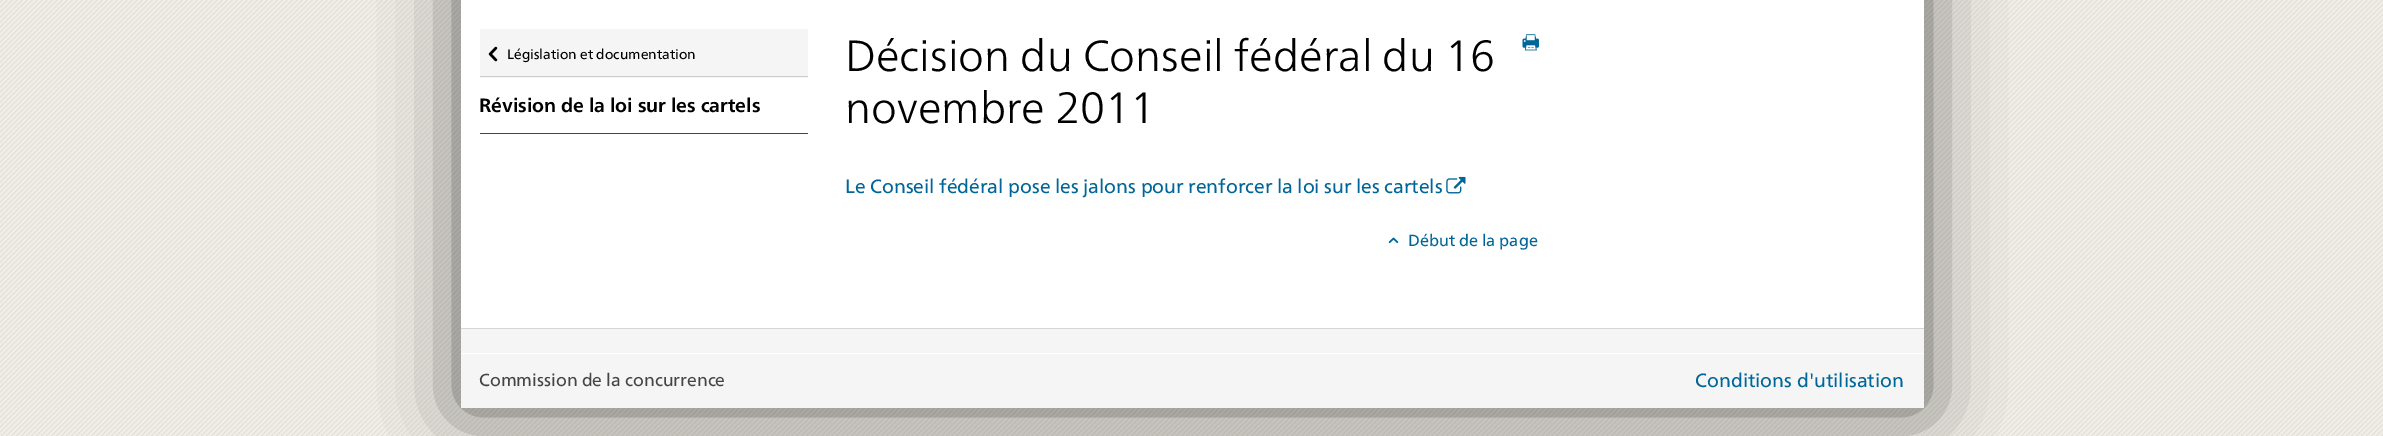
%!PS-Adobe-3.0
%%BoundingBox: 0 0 2383 436
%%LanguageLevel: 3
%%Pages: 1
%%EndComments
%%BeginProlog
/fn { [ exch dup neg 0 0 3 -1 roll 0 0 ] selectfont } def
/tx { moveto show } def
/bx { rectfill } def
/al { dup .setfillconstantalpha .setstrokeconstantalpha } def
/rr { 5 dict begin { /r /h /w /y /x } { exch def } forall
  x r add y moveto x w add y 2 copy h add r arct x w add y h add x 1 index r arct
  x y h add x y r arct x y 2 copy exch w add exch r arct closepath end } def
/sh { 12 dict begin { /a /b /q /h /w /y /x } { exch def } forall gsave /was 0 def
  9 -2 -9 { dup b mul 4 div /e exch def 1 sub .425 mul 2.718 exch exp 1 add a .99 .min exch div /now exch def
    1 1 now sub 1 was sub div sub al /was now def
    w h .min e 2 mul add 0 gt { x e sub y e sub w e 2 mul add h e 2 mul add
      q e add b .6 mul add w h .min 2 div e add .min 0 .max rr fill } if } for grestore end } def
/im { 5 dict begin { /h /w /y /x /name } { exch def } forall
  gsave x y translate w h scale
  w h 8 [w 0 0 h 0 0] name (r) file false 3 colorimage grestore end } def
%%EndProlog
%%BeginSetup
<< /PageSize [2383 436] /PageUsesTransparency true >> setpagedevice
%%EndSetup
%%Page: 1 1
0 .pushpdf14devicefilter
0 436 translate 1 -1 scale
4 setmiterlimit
1 setgray
0 0 2383 436 bx
(image0.raw) 0 0 2383 436 im
0 setgray
461 -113 1463 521 0 37.5 0.6 sh
1 setgray
461 0 1463 328 bx
0.961 setgray
480 29 328 49 bx
0.8 setgray
480 76 328 1 bx
(image1.raw) 488 46 10 16 im
/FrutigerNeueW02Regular-Regular 13.75 fn
0 setgray
(Législation et documentation) 507 59 tx
0.271 setgray
480 133 328 1 bx
/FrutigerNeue-Bold 19.25 fn
0 setgray
(Révision de la loi sur les cartels) 479 112 tx
/FrutigerNeue-Light 43.75 fn
(Décision du Conseil fédéral du 16) 845 71 tx
(novembre 2011) 845 123 tx
(image2.raw) 1522 34 17 17 im
/FrutigerNeueW02Regular-Regular 19.25 fn
0 0.4 0.6 setrgbcolor
(Le Conseil fédéral pose les jalons pour renforcer la loi sur les cartels) 845 193 tx
(image3.raw) 1446 176 20 18 im
(image4.raw) 1388 237 11 7 im
/FrutigerNeueW02Regular-Regular 16.25 fn
(Début de la page) 1408 246 tx
0.961 setgray
461 329 1463 79 bx
0.835 setgray
461 328 1463 1 bx
1 setgray
461 353 1463 1 bx
/FrutigerNeueW02Regular-Regular 17.5 fn
0.271 setgray
(Commission de la concurrence) 479 386 tx
/FrutigerNeueW02Regular-Regular 19.25 fn
0 0.4 0.6 setrgbcolor
(Conditions d'utilisation) 1695 387 tx
.poppdf14devicefilter showpage
%%EOF
